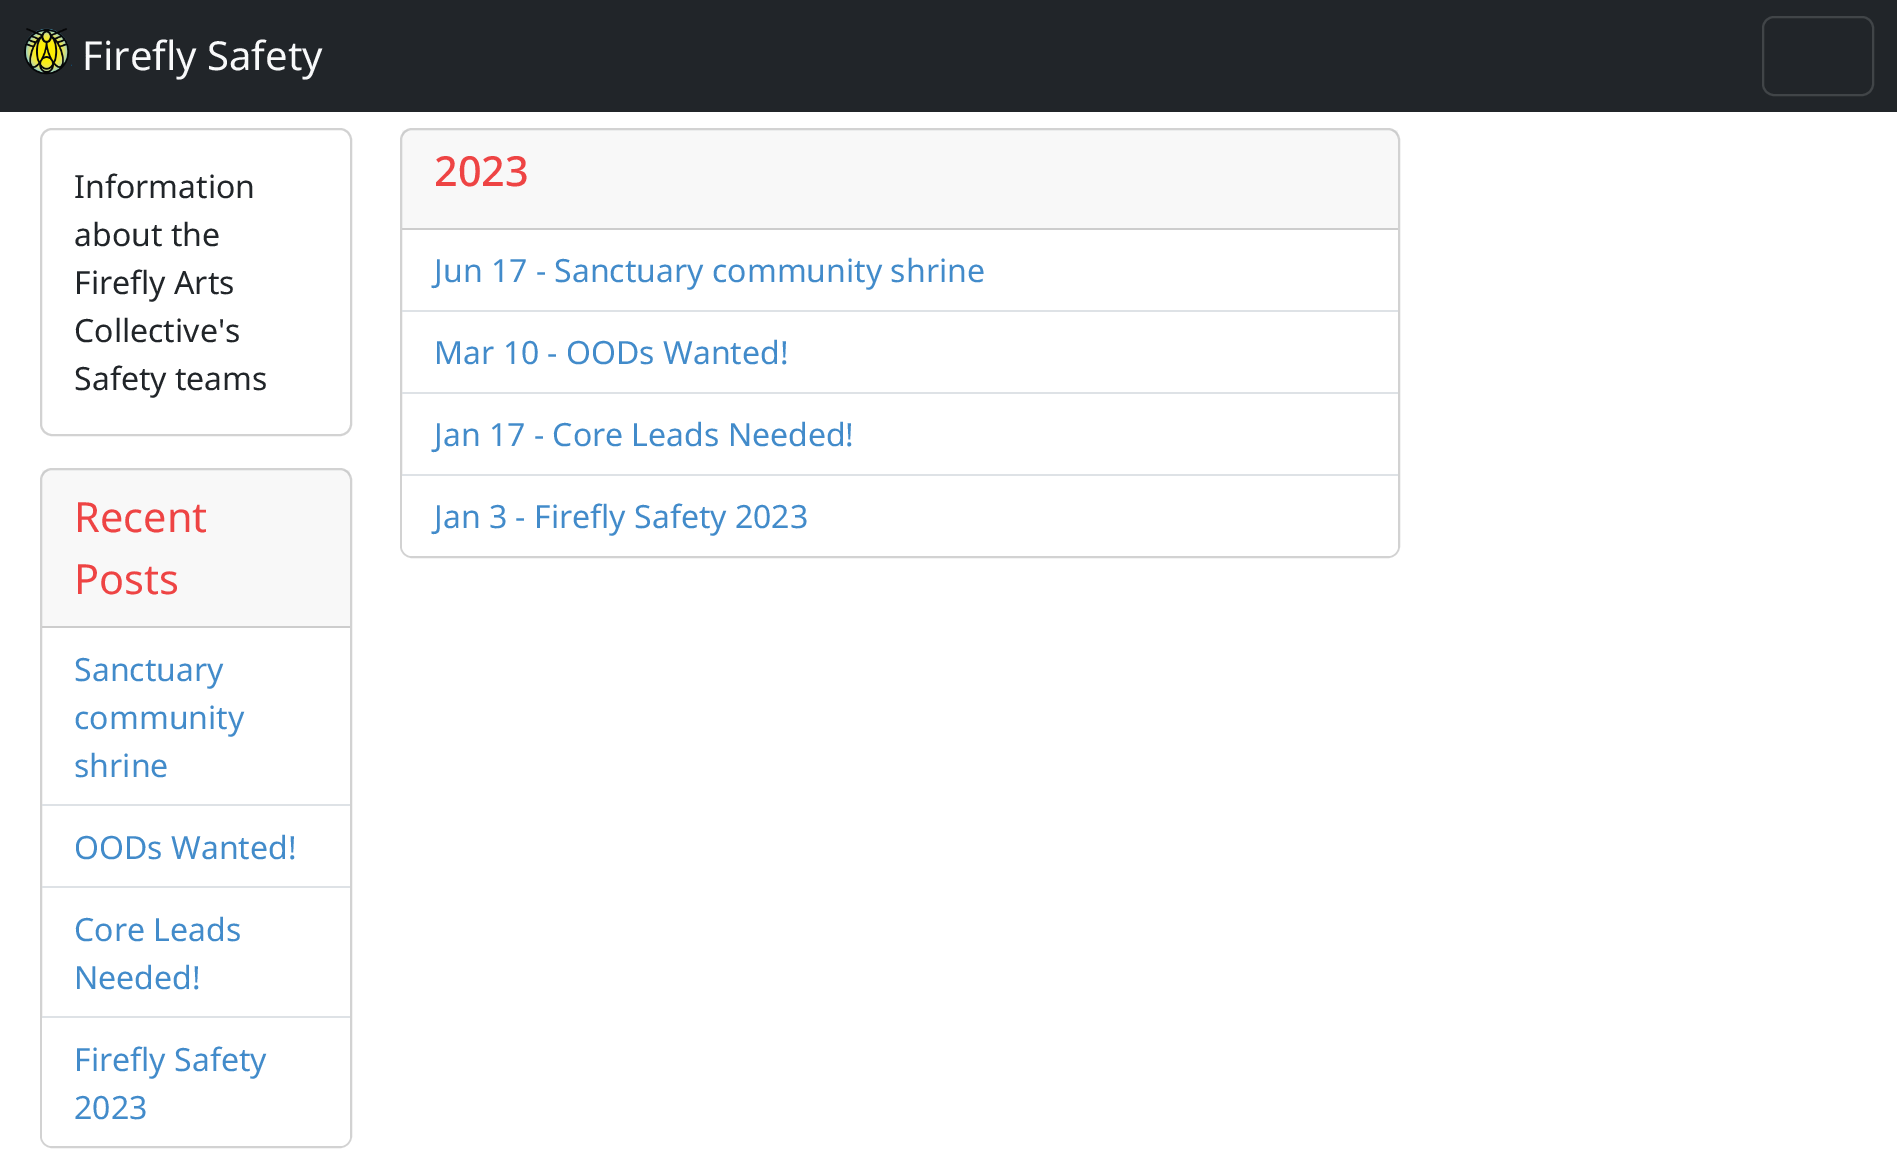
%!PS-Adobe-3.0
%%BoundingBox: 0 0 1897 1149
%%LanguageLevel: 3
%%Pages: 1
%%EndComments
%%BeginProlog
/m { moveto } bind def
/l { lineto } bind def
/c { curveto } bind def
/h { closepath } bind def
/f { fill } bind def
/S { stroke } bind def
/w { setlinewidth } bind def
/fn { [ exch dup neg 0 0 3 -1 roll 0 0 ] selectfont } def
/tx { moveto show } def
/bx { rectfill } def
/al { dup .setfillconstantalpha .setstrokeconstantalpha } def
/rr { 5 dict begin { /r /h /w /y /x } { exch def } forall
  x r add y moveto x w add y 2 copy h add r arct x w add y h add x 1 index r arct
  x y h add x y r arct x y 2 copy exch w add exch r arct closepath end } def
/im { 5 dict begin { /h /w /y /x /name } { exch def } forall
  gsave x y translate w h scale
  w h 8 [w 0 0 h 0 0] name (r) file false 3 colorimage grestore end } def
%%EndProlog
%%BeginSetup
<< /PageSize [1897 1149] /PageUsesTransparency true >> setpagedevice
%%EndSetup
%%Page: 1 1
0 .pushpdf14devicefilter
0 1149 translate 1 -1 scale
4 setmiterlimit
1 setgray
0 0 1897 1149 bx
0.129 0.145 0.161 setrgbcolor
0 0 1897 112 bx
(image0.raw) 24 28 48 47 im
/NotoSans-Regular 40 fn
0.973 0.976 0.98 setrgbcolor
(Firefly Safety) 82 70 tx
0.255 0.271 0.282 setrgbcolor
2 w
1763 17 110 78 11 rr S
0.824 setgray
41 129 310 306 11 rr S
/NotoSans-Regular 32 fn
0.129 0.145 0.161 setrgbcolor
(Information) 74 198 tx
(about the) 74 246 tx
(Firefly Arts) 74 294 tx
(Collective's) 74 342 tx
(Safety teams) 74 390 tx
0.824 setgray
41 469 310 678 11 rr S
0.03 al
0.129 0.145 0.161 setrgbcolor
42 470 308 156 bx
1 al
0.804 setgray
42 626 308 2 bx
/NotoSans-Regular 41.5 fn
0.933 0.267 0.267 setrgbcolor
(Recent) 74 532 tx
(Posts) 74 594 tx
0.871 0.886 0.902 setrgbcolor
42 804 308 2 bx
/NotoSans-Regular 32 fn
0.259 0.545 0.792 setrgbcolor
(Sanctuary) 74 681 tx
(community) 74 729 tx
(shrine) 74 777 tx
0.871 0.886 0.902 setrgbcolor
42 886 308 2 bx
0.259 0.545 0.792 setrgbcolor
(OODs Wanted!) 74 859 tx
0.871 0.886 0.902 setrgbcolor
42 1016 308 2 bx
0.259 0.545 0.792 setrgbcolor
(Core Leads) 74 941 tx
(Needed!) 74 989 tx
1 setgray
42 1018 m 350 1018 l 350 1136 l 350 1141.5 345.5 1146 340 1146 c 52 1146 l 46.5 1146 42 1141.5 42 1136 c h f
0.259 0.545 0.792 setrgbcolor
(Firefly Safety) 74 1071 tx
(2023) 74 1119 tx
0.824 setgray
401 129 998 428 11 rr S
0.03 al
0.129 0.145 0.161 setrgbcolor
402 130 996 98 bx
1 al
0.804 setgray
402 228 996 2 bx
/NotoSans-Medium 41.5 fn
0.933 0.267 0.267 setrgbcolor
(2023) 434 186 tx
0.871 0.886 0.902 setrgbcolor
402 310 996 2 bx
/NotoSans-Regular 32 fn
0.259 0.545 0.792 setrgbcolor
(Jun 17 - Sanctuary community shrine) 434 282 tx
0.871 0.886 0.902 setrgbcolor
402 392 996 2 bx
0.259 0.545 0.792 setrgbcolor
(Mar 10 - OODs Wanted!) 434 364 tx
0.871 0.886 0.902 setrgbcolor
402 474 996 2 bx
0.259 0.545 0.792 setrgbcolor
(Jan 17 - Core Leads Needed!) 434 446 tx
1 setgray
402 476 m 1398 476 l 1398 546 l 1398 551.5 1393.5 556 1388 556 c 412 556 l 406.5 556 402 551.5 402 546 c h f
0.259 0.545 0.792 setrgbcolor
(Jan 3 - Firefly Safety 2023) 434 528 tx
.poppdf14devicefilter showpage
%%EOF
